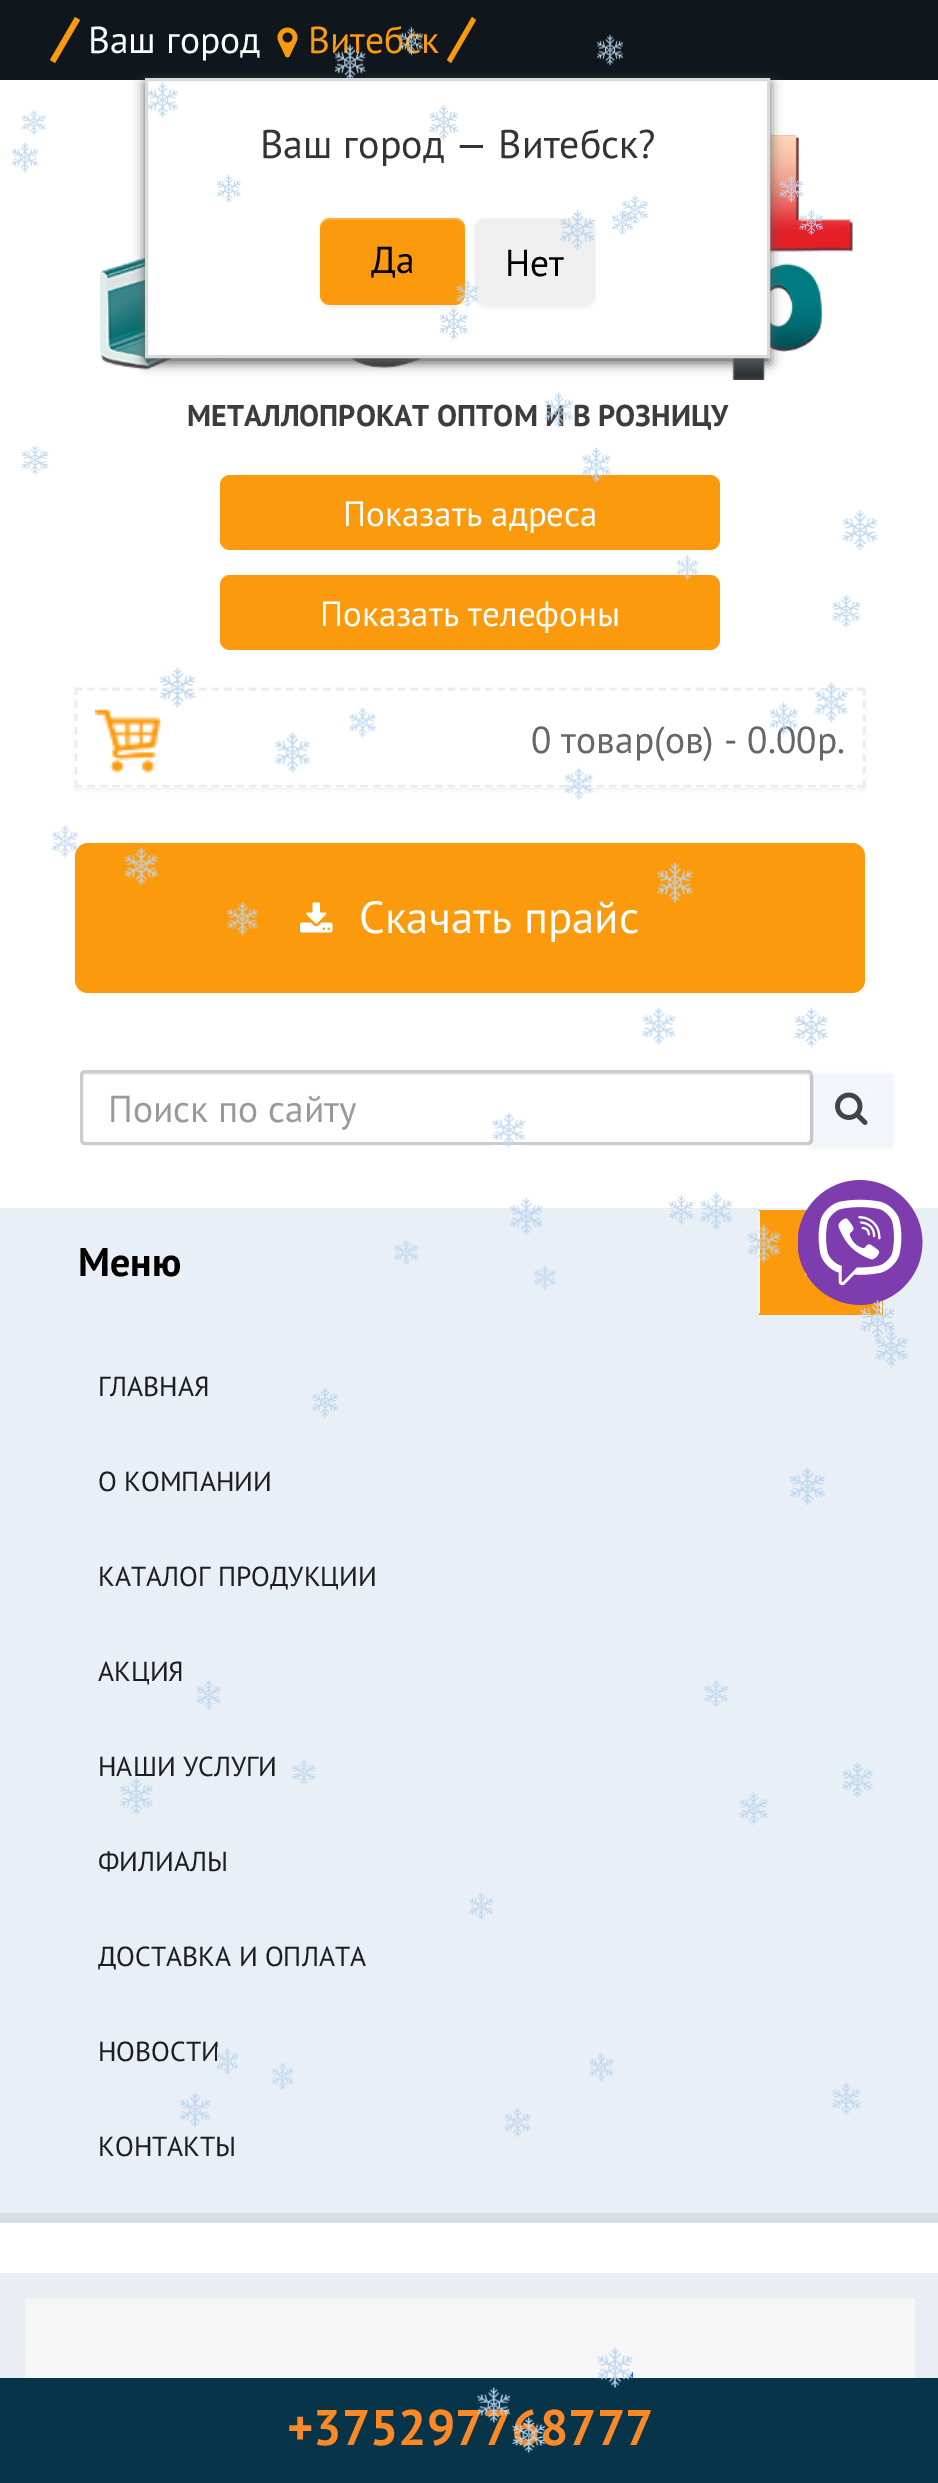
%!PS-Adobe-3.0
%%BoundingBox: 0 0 938 2483
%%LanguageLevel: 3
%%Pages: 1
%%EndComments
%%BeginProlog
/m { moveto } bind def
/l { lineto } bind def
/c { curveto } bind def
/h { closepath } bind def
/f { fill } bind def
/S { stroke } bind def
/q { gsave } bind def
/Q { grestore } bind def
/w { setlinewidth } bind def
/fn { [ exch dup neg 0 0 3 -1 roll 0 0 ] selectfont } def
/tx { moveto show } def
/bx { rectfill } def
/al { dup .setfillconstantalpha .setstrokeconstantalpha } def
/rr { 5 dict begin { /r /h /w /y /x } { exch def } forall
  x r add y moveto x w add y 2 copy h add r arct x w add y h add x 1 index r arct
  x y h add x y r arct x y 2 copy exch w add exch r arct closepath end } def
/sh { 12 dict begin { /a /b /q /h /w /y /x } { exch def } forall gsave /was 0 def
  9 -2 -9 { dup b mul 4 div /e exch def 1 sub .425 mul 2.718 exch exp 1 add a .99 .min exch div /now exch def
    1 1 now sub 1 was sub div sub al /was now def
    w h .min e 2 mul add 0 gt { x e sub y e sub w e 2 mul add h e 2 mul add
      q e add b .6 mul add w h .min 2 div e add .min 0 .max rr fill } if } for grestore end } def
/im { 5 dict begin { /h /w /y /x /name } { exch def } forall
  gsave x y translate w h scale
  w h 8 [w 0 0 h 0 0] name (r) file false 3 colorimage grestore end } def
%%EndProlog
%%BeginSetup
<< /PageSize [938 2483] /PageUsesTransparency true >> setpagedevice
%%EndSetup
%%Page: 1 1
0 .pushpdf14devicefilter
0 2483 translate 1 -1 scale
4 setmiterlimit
1 setgray
0 0 938 2483 bx
0.059 0.09 0.11 setrgbcolor
0 0 938 80 bx
0.988 0.604 0.051 setrgbcolor
75 17 m 80 20 l 55 63 l 50 60 l h f
472 17 m 476 20 l 451 63 l 447 60 l h f
/PTSans-Regular 37.5 fn
1 setgray
(Ваш город) 88 53 tx
(image0.raw) 277 27 21 31 im
0.988 0.604 0.051 setrgbcolor
(Витебск) 308 53 tx
(image61.raw) 100 135 753 245 im
0.357 0.353 0.353 setrgbcolor
145 83 625 280 0 6 1 sh
1 setgray
146.5 79.5 m 768.5 79.5 l 768.5 356.5 l 146.5 356.5 l h q f Q
0.855 setgray
3 w
S
/PTSans-Regular 40 fn
0.2 setgray
(Ваш город — Витебск?) 260 158 tx
0 setgray
320 220 145 88 10 2.5 0.05 sh
0.988 0.604 0.051 setrgbcolor
320 218 145 87 10 rr f
0.2 al
1 setgray
330 220 m 455 220 l 461 220 465 224 465 230 c 465 213 446 218 434 218 c 351 218 l 339 218 320 213 320 230 c 320 224 324 220 330 220 c h f
/PTSans-Regular 37.5 fn
1 al
0.012 0 0 setrgbcolor
(Да) 371 273 tx
0 setgray
475 220 120 88 10 2.5 0.05 sh
0.937 setgray
475 218 120 87 10 rr f
0.2 al
1 setgray
485 220 m 585 220 l 591 220 595 224 595 230 c 595 214 580 218 568 218 c 502 218 l 490 218 475 214 475 230 c 475 224 479 220 485 220 c h f
1 al
0.012 0 0 setrgbcolor
(Нет) 505 276 tx
(image1.raw) 334 44 32 37 im
(image2.raw) 399 27 25 29 im
(image3.raw) 597 34 26 32 im
(image4.raw) 147 82 31 36 im
(image5.raw) 21 110 26 25 im
(image6.raw) 429 105 29 35 im
(image7.raw) 12 142 26 31 im
(image8.raw) 216 175 25 28 im
(image9.raw) 779 175 25 28 im
(image10.raw) 560 210 35 40 im
(image12.raw) 611 210 23 25 im
(image11.raw) 621 195 28 30 im
(image13.raw) 799 210 25 25 im
(image15.raw) 439 307 29 33 im
(image14.raw) 456 280 23 28 im
/PTSans-Bold 30 fn
0.235 setgray
(МЕТАЛЛОПРОКАТ ОПТОМ И В РОЗНИЦУ) 187 426 tx
(image16.raw) 544 392 29 36 im
(image17.raw) 21 445 28 30 im
0.988 0.604 0.051 setrgbcolor
220 475 500 75 10 rr f
(image18.raw) 582 447 29 36 im
(image19.raw) 842 510 36 40 im
220 575 500 75 10 rr f
(image20.raw) 676 554 23 27 im
(image21.raw) 831 595 30 33 im
0 setgray
75 690 790 100 0 2.5 0.05 sh
1 setgray
75 688 790 100 bx
0.925 setgray
2.5 w
[7.5 4.92] 0 setdash
75 689 m 865 689 l S
(image22.raw) 159 667 37 41 im
(image23.raw) 349 707 27 31 im
/PTSans-Regular 37.5 fn
0.4 setgray
(0 товар\(ов\) - 0.00р.) 531 753 tx
(image24.raw) 769 702 29 34 im
(image25.raw) 814 682 34 41 im
(image26.raw) 274 732 37 41 im
0.925 setgray
[7.5 5.72] 0 setdash
864 687.5 m 864 787.5 l S
[7.5 4.92] 0 setdash
75 786 m 865 786 l S
(image27.raw) 564 767 30 34 im
0.988 0.604 0.051 setrgbcolor
75 843 790 150 13 rr f
(image28.raw) 51 824 28 34 im
(image29.raw) 124 847 35 39 im
(image30.raw) 657 862 36 41 im
(image31.raw) 226 902 33 34 im
(image32.raw) 642 1007 34 39 im
(image33.raw) 794 1007 34 41 im
0.925 setgray
85 1075 m 808 1075 l 809 1075 810 1076 810 1078 c 810 1076 810 1073 808 1073 c 86 1073 l 84 1073 83 1074 83 1076 c h f
0.8 setgray
3 w
[] 0 setdash
81.5 1071.5 730 72 3.5 rr S
(image34.raw) 492 1112 34 36 im
0.91 0.937 0.965 setrgbcolor
0 1208 938 1005 bx
(image35.raw) 509 1197 34 39 im
(image36.raw) 669 1195 25 30 im
(image37.raw) 699 1192 34 39 im
(image38.raw) 394 1239 25 27 im
0.988 0.604 0.051 setrgbcolor
758 1210 125 105 bx
0.973 setgray
758 1315 m 758 1210 l 760 1212 l 760 1312 l h f
(image39.raw) 747 1224 34 39 im
(image40.raw) 534 1264 22 27 im
(image42.raw) 874 1330 34 38 im
882 1210 m 882 1315 l 880 1312 l 880 1212 l h f
(image65.raw) 805 1272 2 3 im
(image66.raw) 798 1180 125 125 im
(image41.raw) 860 1300 35 40 im
(image43.raw) 312 1387 26 31 im
(image44.raw) 789 1467 37 38 im
(image45.raw) 196 1680 25 30 im
(image46.raw) 704 1680 25 28 im
(image47.raw) 119 1777 34 38 im
(image48.raw) 291 1760 25 25 im
(image49.raw) 739 1792 30 33 im
(image50.raw) 841 1762 33 36 im
(image51.raw) 469 1892 25 29 im
/PTSans-Regular 27.5 fn
0.118 setgray
(НОВОСТИ) 98 2061 tx
(image52.raw) 216 2047 23 29 im
(image53.raw) 271 2062 23 29 im
(image54.raw) 589 2052 25 31 im
(image55.raw) 179 2092 32 36 im
(image56.raw) 504 2107 27 31 im
(image57.raw) 831 2082 30 33 im
0.965 setgray
25 2298 890 80 bx
0.918 0.929 0.953 setrgbcolor
25 w
12.5 2285.5 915 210 rectstroke
0.027 0.204 0.282 setrgbcolor
0 2378 938 105 bx
(image58.raw) 597 2347 36 41 im
/PTSans-Bold 50 fn
0.988 0.533 0.149 setrgbcolor
(+375297768777) 287 2445 tx
(image59.raw) 477 2387 34 36 im
(image60.raw) 512 2417 34 36 im
/PTSans-Regular 35 fn
1 setgray
(Показать адреса) 343 526 tx
(Показать телефоны) 320 626 tx
0.925 setgray
2.5 w
[7.5 5.72] 0 setdash
76 687.5 m 76 787.5 l S
(image62.raw) 95 709 66 65 im
(image63.raw) 300 902 33 31 im
/PTSans-Regular 45 fn
1 setgray
(Скачать прайс) 359 933 tx
/PTSans-Regular 37.5 fn
0.6 setgray
(Поиск по сайту) 108 1122 tx
q
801 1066 m 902 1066 l 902 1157 l 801 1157 l h 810 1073 m 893 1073 l 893 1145 l 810 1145 l h eoclip newpath
0 setgray
810 1075 83 73 0 2.5 0.05 sh
Q
0.05 al
0.035 0.255 0.753 setrgbcolor
810 1073 83 72 bx
0.2 al
1 setgray
810 1073 83 3 bx
1 al
(image64.raw) 835 1092 33 33 im
0.847 0.871 0.898 setrgbcolor
0 2213 938 10 bx
/PTSans-Bold 40 fn
0.012 0 0 setrgbcolor
(Меню) 78 1276 tx
/PTSans-Regular 27.5 fn
0.118 setgray
(ГЛАВНАЯ) 98 1396 tx
(О КОМПАНИИ) 98 1491 tx
(КАТАЛОГ ПРОДУКЦИИ) 98 1586 tx
(АКЦИЯ) 98 1681 tx
(НАШИ УСЛУГИ) 98 1776 tx
(ФИЛИАЛЫ) 98 1871 tx
(ДОСТАВКА И ОПЛАТА) 98 1966 tx
(КОНТАКТЫ) 98 2156 tx
.poppdf14devicefilter showpage
%%EOF
